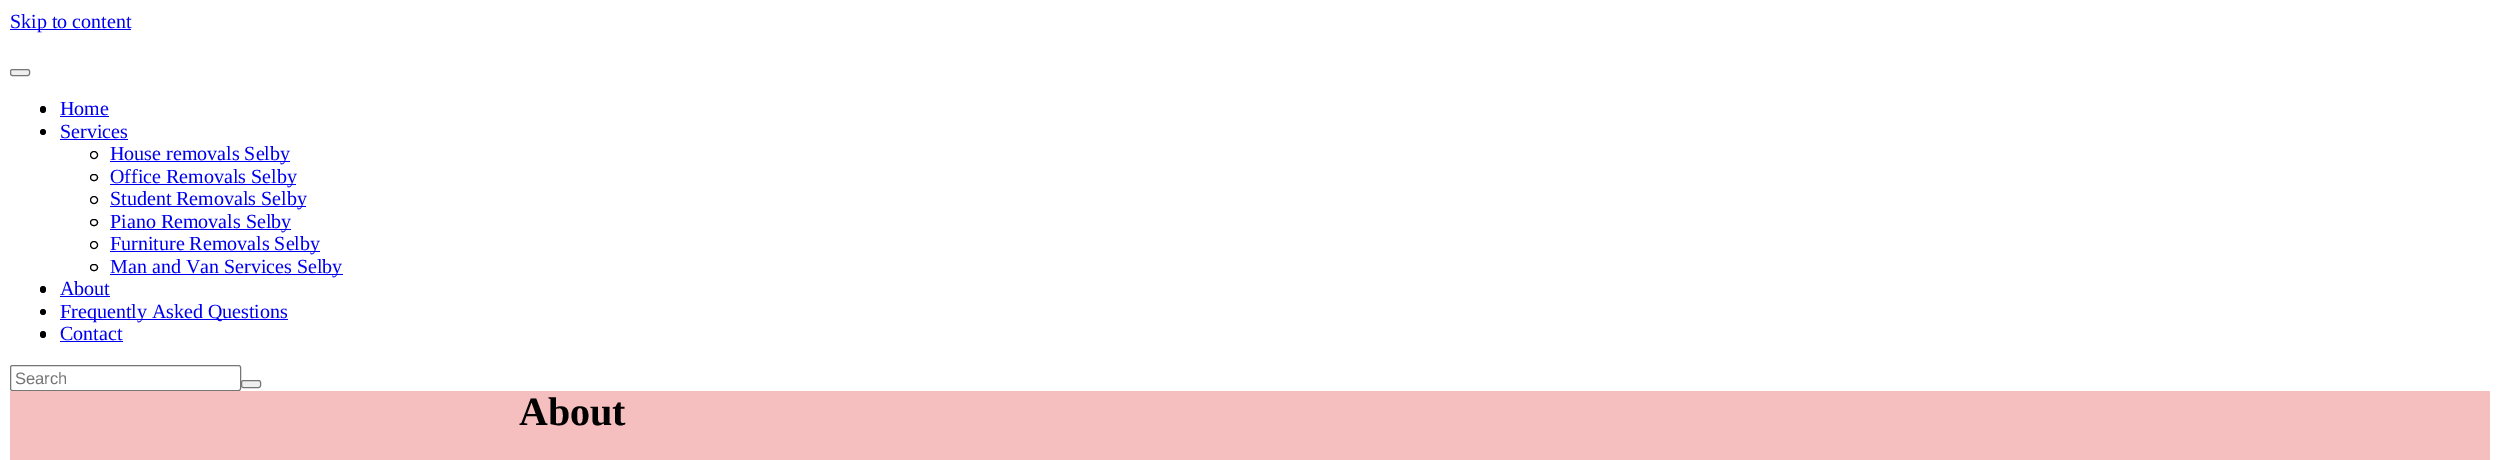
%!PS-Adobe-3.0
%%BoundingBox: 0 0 2500 460
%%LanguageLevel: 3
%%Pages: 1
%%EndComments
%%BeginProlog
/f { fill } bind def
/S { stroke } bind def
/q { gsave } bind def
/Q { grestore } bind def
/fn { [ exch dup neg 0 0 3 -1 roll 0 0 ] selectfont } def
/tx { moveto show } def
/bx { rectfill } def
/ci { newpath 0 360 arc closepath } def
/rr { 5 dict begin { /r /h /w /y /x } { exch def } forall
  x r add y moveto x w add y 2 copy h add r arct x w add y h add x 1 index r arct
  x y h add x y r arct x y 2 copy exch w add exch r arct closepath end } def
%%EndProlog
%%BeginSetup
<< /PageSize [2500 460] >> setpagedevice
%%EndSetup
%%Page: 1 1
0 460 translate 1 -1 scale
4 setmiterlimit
1 setgray
0 0 2500 460 bx
0 0 0.933 setrgbcolor
10 29 121 1 bx
/LiberationSerif-Regular 20 fn
(Skip to content) 10 28 tx
0.937 setgray
10.5 69.5 19 6 2 rr q f Q
0.463 setgray
S
0 setgray
40 106 6 7 3 rr f
0 0 0.933 setrgbcolor
(Home) 60 115 tx
60 116 49 1 bx
0 setgray
43 132 3 ci f
0 0 0.933 setrgbcolor
(Services) 60 138 tx
60 139 68 1 bx
0 setgray
94 155 3.5 ci S
0 0 0.933 setrgbcolor
110 161 180 1 bx
(House removals Selby) 110 160 tx
0 setgray
90.5 174.5 7 6 3 rr S
0 0 0.933 setrgbcolor
110 184 186 1 bx
(Office Removals Selby) 110 183 tx
0 setgray
94 200 3.5 ci S
0 0 0.933 setrgbcolor
110 206 196 1 bx
(Student Removals Selby) 110 205 tx
0 setgray
90.5 219.5 7 6 3 rr S
0 0 0.933 setrgbcolor
110 229 181 1 bx
(Piano Removals Selby) 110 228 tx
0 setgray
94 245 3.5 ci S
0 0 0.933 setrgbcolor
110 251 210 1 bx
(Furniture Removals Selby) 110 250 tx
0 setgray
90.5 264.5 7 6 3 rr S
0 0 0.933 setrgbcolor
110 274 233 1 bx
(Man and Van Services Selby) 110 273 tx
0 setgray
40 286 6 7 3 rr f
0 0 0.933 setrgbcolor
(About) 60 295 tx
60 296 50 1 bx
0 setgray
43 312 3 ci f
0 0 0.933 setrgbcolor
60 319 228 1 bx
(Frequently Asked Questions) 60 318 tx
0 setgray
40 331 6 7 3 rr f
0 0 0.933 setrgbcolor
(Contact) 60 340 tx
60 341 63 1 bx
0.463 setgray
10.5 365.5 230 25 2 rr S
/LiberationSans-Regular 16.5 fn
0.459 setgray
(Search) 15 384 tx
0.937 setgray
241.5 380.5 19 7 2 rr q f Q
0.463 setgray
S
0.965 0.749 0.749 setrgbcolor
10 391 2480 69 bx
/LiberationSerif-Bold 40 fn
0 setgray
(About) 519 425 tx
showpage
%%EOF
